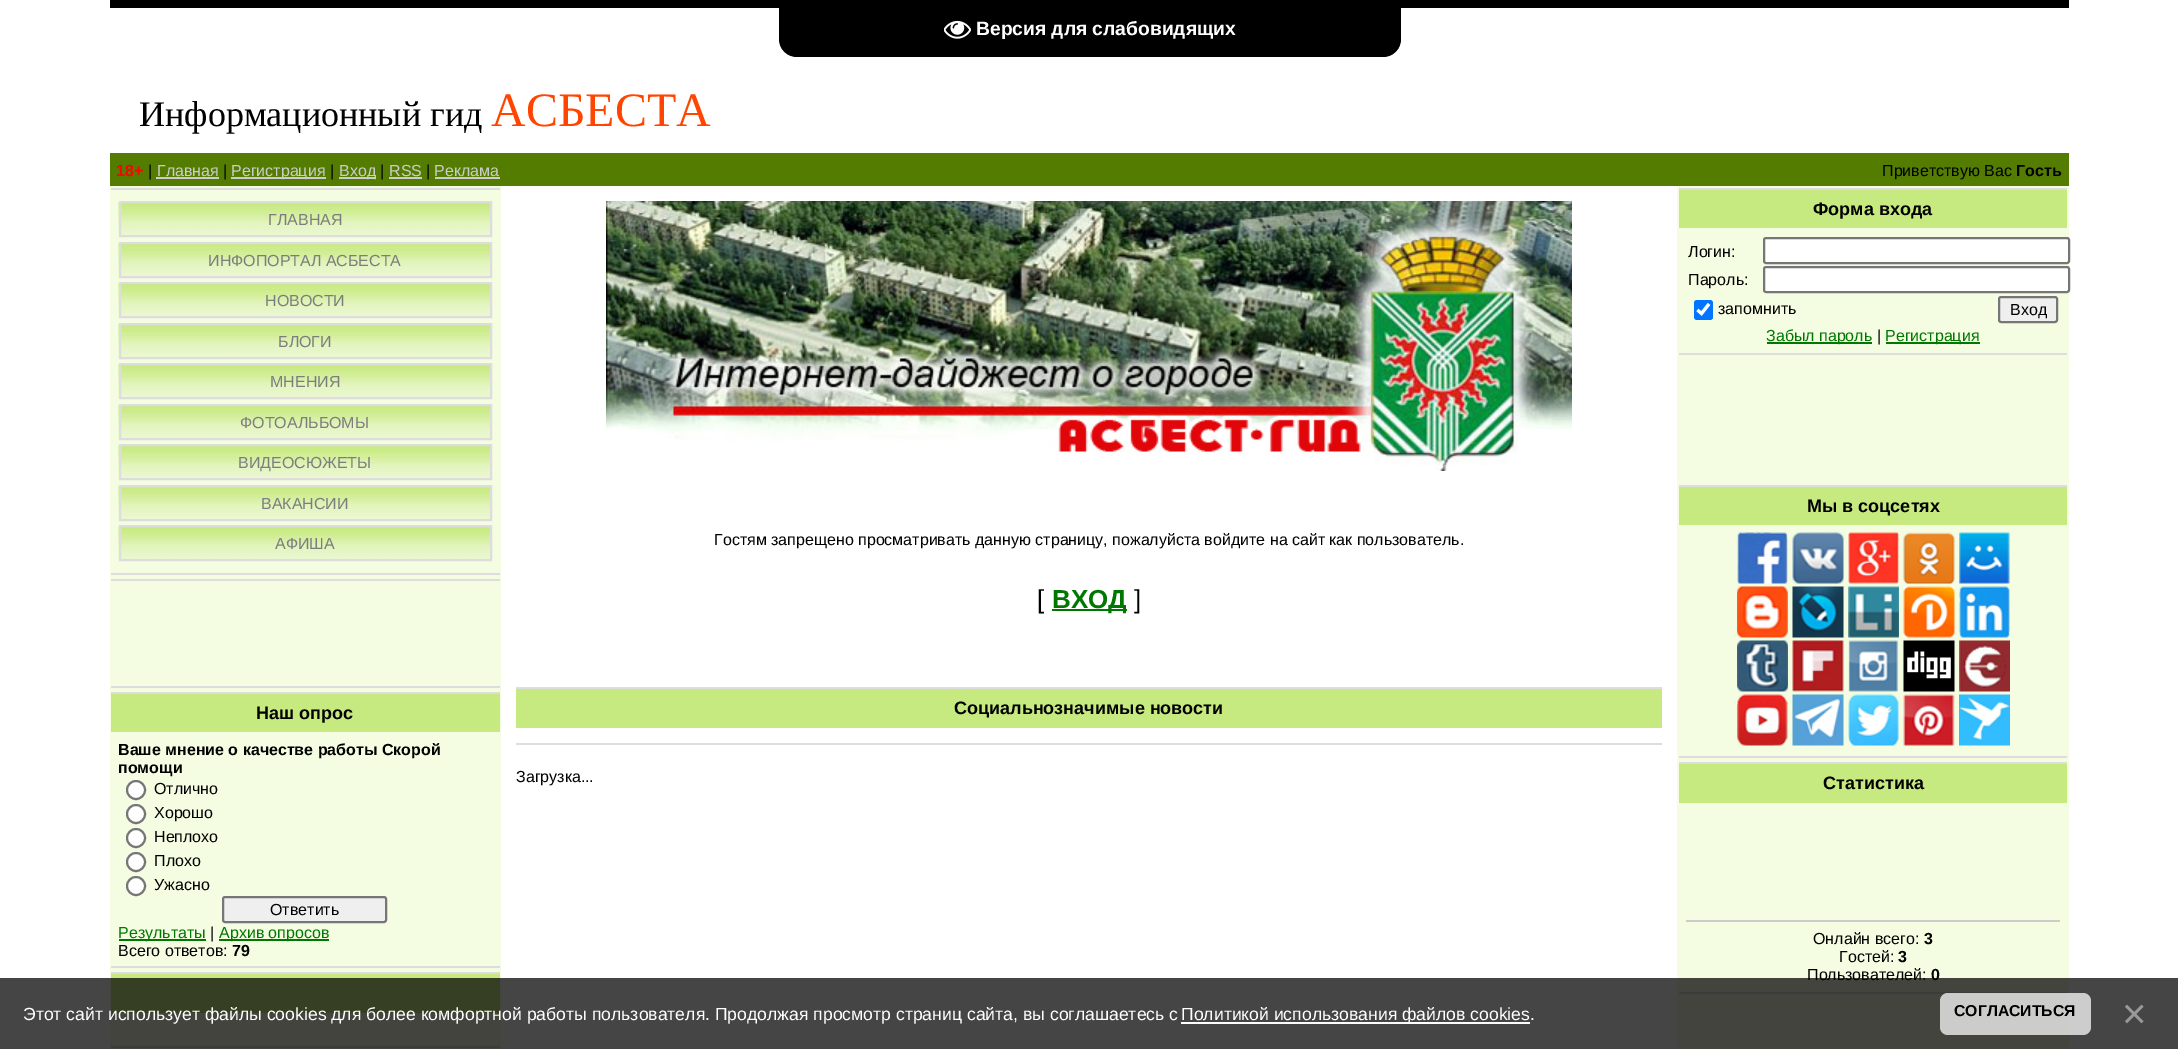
%!PS-Adobe-3.0
%%BoundingBox: 0 0 2178 1049
%%LanguageLevel: 3
%%Pages: 1
%%EndComments
%%BeginProlog
/m { moveto } bind def
/l { lineto } bind def
/c { curveto } bind def
/h { closepath } bind def
/f { fill } bind def
/S { stroke } bind def
/q { gsave } bind def
/Q { grestore } bind def
/w { setlinewidth } bind def
/fn { [ exch dup neg 0 0 3 -1 roll 0 0 ] selectfont } def
/tx { moveto show } def
/bx { rectfill } def
/al { dup .setfillconstantalpha .setstrokeconstantalpha } def
/ci { newpath 0 360 arc closepath } def
/rr { 5 dict begin { /r /h /w /y /x } { exch def } forall
  x r add y moveto x w add y 2 copy h add r arct x w add y h add x 1 index r arct
  x y h add x y r arct x y 2 copy exch w add exch r arct closepath end } def
/im { 5 dict begin { /h /w /y /x /name } { exch def } forall
  gsave x y translate w h scale
  w h 8 [w 0 0 h 0 0] name (r) file false 3 colorimage grestore end } def
%%EndProlog
%%BeginSetup
<< /PageSize [2178 1049] /PageUsesTransparency true >> setpagedevice
%%EndSetup
%%Page: 1 1
0 .pushpdf14devicefilter
0 1049 translate 1 -1 scale
4 setmiterlimit
1 setgray
0 0 2178 1049 bx
0 setgray
110 0 1959 8 bx
779 0 m 1401 0 l 1401 39 l 1401 49 1393 57 1383 57 c 797 57 l 787 57 779 49 779 39 c h f
(image0.raw) 944 20 27 19 im
/LiberationSans-Bold 19.25 fn
1 setgray
(Версия для слабовидящих) 976 35 tx
/LiberationSerif-Regular 36 fn
0 setgray
(Информационный гид) 139 126 tx
/LiberationSerif-Regular 48 fn
1 0.271 0 setrgbcolor
(АСБЕСТА) 491 126 tx
0.325 0.486 0.004 setrgbcolor
110 153 1959 33 bx
/LiberationSans-Bold 16 fn
1 0 0 setrgbcolor
(18+) 116 176 tx
/LiberationSans-Regular 16 fn
0 setgray
(|) 148 176 tx
0.8 setgray
(Главная) 157 176 tx
156 177 63 2 bx
0 setgray
(|) 223 176 tx
0.8 setgray
231 177 95 2 bx
(Регистрация) 231 176 tx
0 setgray
(|) 330 176 tx
0.8 setgray
339 177 36 2 bx
(Вход) 339 176 tx
0 setgray
(|) 380 176 tx
0.8 setgray
(RSS) 389 176 tx
389 177 33 2 bx
0 setgray
(|) 426 176 tx
0.8 setgray
(Реклама) 434 176 tx
435 177 65 2 bx
0 setgray
(Приветствую Вас) 1882 176 tx
/LiberationSans-Bold 16 fn
(Гость) 2016 176 tx
0.957 0.992 0.882 setrgbcolor
110 186 391 863 bx
0.867 setgray
111 188 389 2 bx
111 573 389 2 bx
(image1.raw) 118 202 372 35 im
2 w
120 202 371 34 rectstroke
/LiberationSans-Regular 16 fn
0.49 setgray
(ГЛАВНАЯ) 268 225 tx
(image2.raw) 118 243 372 35 im
0.867 setgray
120 243 371 34 rectstroke
0.49 setgray
(ИНФОПОРТАЛ АСБЕСТА) 208 266 tx
(image3.raw) 118 283 372 35 im
0.867 setgray
120 283 371 34 rectstroke
0.49 setgray
(НОВОСТИ) 265 306 tx
(image4.raw) 118 324 372 35 im
0.867 setgray
120 324 371 34 rectstroke
0.49 setgray
(БЛОГИ) 278 347 tx
(image5.raw) 118 364 372 35 im
0.867 setgray
120 364 371 34 rectstroke
0.49 setgray
(МНЕНИЯ) 270 387 tx
(image6.raw) 118 405 372 35 im
0.867 setgray
120 405 371 34 rectstroke
0.49 setgray
(ФОТОАЛЬБОМЫ) 240 428 tx
(image7.raw) 118 445 372 35 im
0.867 setgray
120 445 371 34 rectstroke
0.49 setgray
(ВИДЕОСЮЖЕТЫ) 238 468 tx
(image8.raw) 118 486 372 35 im
0.867 setgray
120 486 371 34 rectstroke
0.49 setgray
(ВАКАНСИИ) 261 509 tx
(image3.raw) 118 526 372 35 im
0.867 setgray
120 526 371 34 rectstroke
0.49 setgray
(АФИША) 275 549 tx
0.867 setgray
111 579 389 2 bx
111 686 389 2 bx
111 692 389 2 bx
111 966 389 2 bx
0.78 0.918 0.502 setrgbcolor
111 694 389 38 bx
/LiberationSans-Bold 18 fn
0 setgray
(Наш опрос) 256 719 tx
/LiberationSans-Bold 16 fn
(Ваше мнение о качестве работы Скорой) 118 755 tx
(помощи) 118 773 tx
1 setgray
136 790 9 ci q f Q
0.463 setgray
S
/LiberationSans-Regular 16 fn
0 setgray
(Отлично) 154 794 tx
1 setgray
136 814 9 ci q f Q
0.463 setgray
S
0 setgray
(Хорошо) 154 818 tx
1 setgray
136 838 9 ci q f Q
0.463 setgray
S
0 setgray
(Неплохо) 154 842 tx
1 setgray
136 862 9 ci q f Q
0.463 setgray
S
0 setgray
(Плохо) 154 866 tx
1 setgray
136 886 9 ci q f Q
0.463 setgray
S
0 setgray
(Ужасно) 154 890 tx
0.937 setgray
223 897 163 25 2 rr q f Q
0.463 setgray
S
0 setgray
(Ответить) 270 915 tx
0 0.467 0 setrgbcolor
119 939 87 2 bx
(Результаты) 118 938 tx
0 setgray
(|) 210 938 tx
0 0.467 0 setrgbcolor
219 939 110 2 bx
(Архив опросов) 219 938 tx
0 setgray
(Всего ответов:) 118 956 tx
/LiberationSans-Bold 16 fn
(79) 232 956 tx
0.867 setgray
111 972 389 2 bx
111 1046 389 2 bx
0.78 0.918 0.502 setrgbcolor
111 974 389 39 bx
(image9.raw) 606 201 966 270 im
/LiberationSans-Regular 16 fn
0 setgray
(Гостям запрещено просматривать данную страницу, пожалуйста войдите на сайт как пользователь.) 714 545 tx
/LiberationSans-Regular 26 fn
([) 1037 608 tx
0 0.467 0 setrgbcolor
1052 609 75 2 bx
/LiberationSans-Bold 26 fn
(ВХОД) 1052 608 tx
/LiberationSans-Regular 26 fn
0 setgray
(]) 1134 608 tx
0.867 setgray
516 687 1146 2 bx
516 743 1146 2 bx
0.78 0.918 0.502 setrgbcolor
516 689 1146 39 bx
/LiberationSans-Bold 18 fn
0 setgray
(Социальнозначимые новости) 954 714 tx
/LiberationSans-Regular 16 fn
(Загрузка...) 516 782 tx
0.957 0.992 0.882 setrgbcolor
1677 186 392 863 bx
0.867 setgray
1679 188 388 2 bx
1679 353 388 2 bx
0.78 0.918 0.502 setrgbcolor
1679 190 388 38 bx
/LiberationSans-Bold 18 fn
0 setgray
(Форма входа) 1813 215 tx
/LiberationSans-Regular 16 fn
(Логин:) 1688 257 tx
1 setgray
1764 238 305 25 2 rr q f Q
0.463 setgray
S
0 setgray
(Пароль:) 1688 285 tx
1 setgray
1764 267 305 25 2 rr q f Q
0.463 setgray
S
0 0.459 1 setrgbcolor
1694 300 19 20 3 rr f
1 setgray
3.1 w
1697.5 310 m 1701.5 313.5 l 1709 304 l S
0 setgray
(запомнить) 1718 314 tx
0.937 setgray
1999 297 58 25 2 rr q f Q
0.463 setgray
2 w
S
0 setgray
(Вход) 2010 315 tx
0 0.467 0 setrgbcolor
1767 342 105 2 bx
(Забыл пароль) 1766 341 tx
0 setgray
(|) 1877 341 tx
0 0.467 0 setrgbcolor
1886 342 94 2 bx
(Регистрация) 1885 341 tx
0.867 setgray
1679 485 388 2 bx
1679 756 388 2 bx
0.78 0.918 0.502 setrgbcolor
1679 487 388 38 bx
/LiberationSans-Bold 18 fn
0 setgray
(Мы в соцсетях) 1807 512 tx
(image10.raw) 1737 532 51 52 im
(image11.raw) 1792 532 52 52 im
(image12.raw) 1848 532 51 52 im
(image13.raw) 1903 532 52 52 im
(image14.raw) 1959 532 51 52 im
(image15.raw) 1737 586 51 52 im
(image16.raw) 1792 586 52 52 im
(image17.raw) 1848 586 51 52 im
(image18.raw) 1903 586 52 52 im
(image19.raw) 1959 586 51 52 im
(image20.raw) 1737 640 51 52 im
(image21.raw) 1792 640 52 52 im
(image22.raw) 1848 640 51 52 im
(image23.raw) 1903 640 52 52 im
(image24.raw) 1959 640 51 52 im
(image25.raw) 1737 694 51 52 im
(image26.raw) 1792 694 52 52 im
(image27.raw) 1848 694 51 52 im
(image28.raw) 1903 694 52 52 im
(image29.raw) 1959 694 51 52 im
0.867 setgray
1679 762 388 2 bx
1679 992 388 2 bx
0.78 0.918 0.502 setrgbcolor
1679 764 388 39 bx
0 setgray
(Статистика) 1823 789 tx
0.8 setgray
1686 920 374 2 bx
/LiberationSans-Regular 16 fn
0 setgray
(Онлайн всего:) 1813 944 tx
/LiberationSans-Bold 16 fn
(3) 1924 944 tx
/LiberationSans-Regular 16 fn
(Гостей:) 1839 962 tx
/LiberationSans-Bold 16 fn
(3) 1898 962 tx
/LiberationSans-Regular 16 fn
(Пользователей:) 1807 980 tx
/LiberationSans-Bold 16 fn
(0) 1931 980 tx
0.73 al
0 978 2178 71 bx
/LiberationSans-Regular 17.6 fn
1 al
1 setgray
(Этот сайт использует файлы cookies для более комфортной работы пользователя. Продолжая просмотр страниц сайта, вы соглашаетесь с) 23 1020 tx
1181 1022 349 2 bx
(Политикой использования файлов cookies) 1181 1020 tx
(.) 1530 1020 tx
0.73 al
1940 993 151 42 8 rr f
/LiberationSans-Bold 15.75 fn
1 al
0 setgray
(СОГЛАСИТЬСЯ) 1954 1016 tx
/LiberationSans-Regular 42 fn
0.6 setgray
(×) 2122 1028 tx
.poppdf14devicefilter showpage
%%EOF
